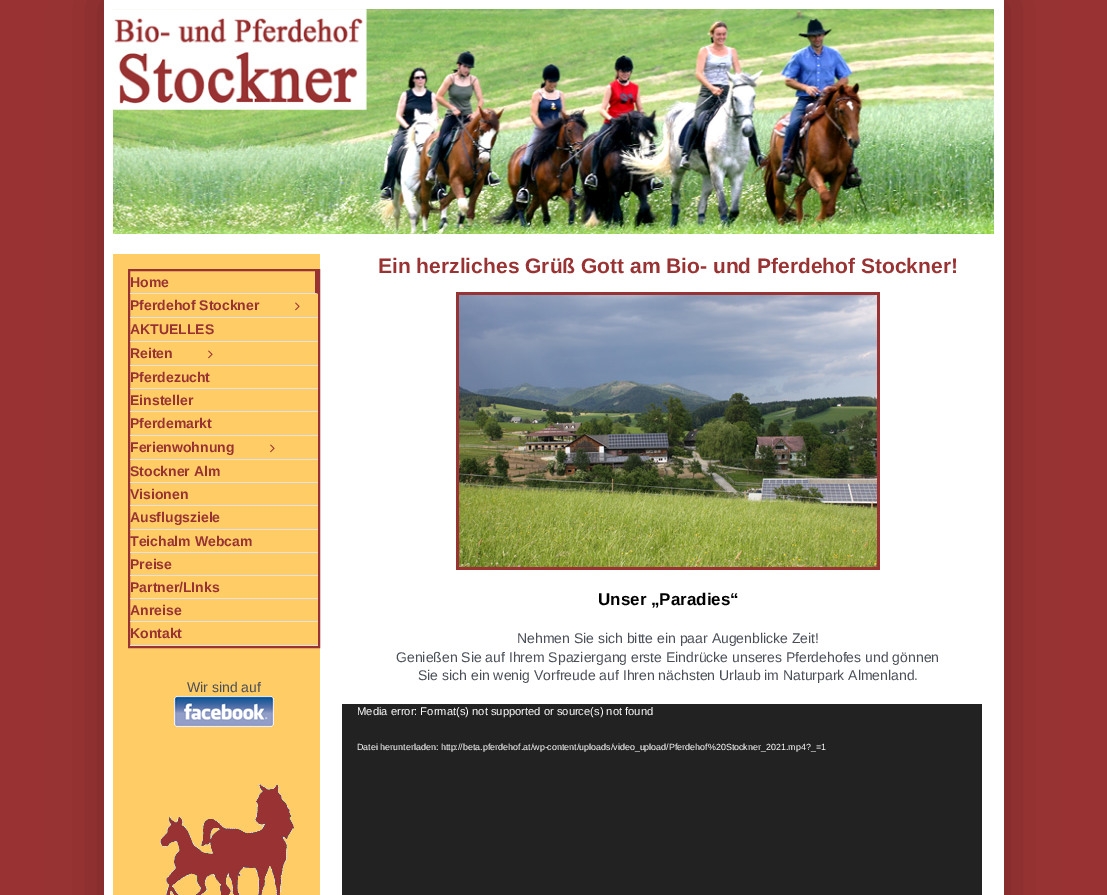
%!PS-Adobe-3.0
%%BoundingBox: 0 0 1107 895
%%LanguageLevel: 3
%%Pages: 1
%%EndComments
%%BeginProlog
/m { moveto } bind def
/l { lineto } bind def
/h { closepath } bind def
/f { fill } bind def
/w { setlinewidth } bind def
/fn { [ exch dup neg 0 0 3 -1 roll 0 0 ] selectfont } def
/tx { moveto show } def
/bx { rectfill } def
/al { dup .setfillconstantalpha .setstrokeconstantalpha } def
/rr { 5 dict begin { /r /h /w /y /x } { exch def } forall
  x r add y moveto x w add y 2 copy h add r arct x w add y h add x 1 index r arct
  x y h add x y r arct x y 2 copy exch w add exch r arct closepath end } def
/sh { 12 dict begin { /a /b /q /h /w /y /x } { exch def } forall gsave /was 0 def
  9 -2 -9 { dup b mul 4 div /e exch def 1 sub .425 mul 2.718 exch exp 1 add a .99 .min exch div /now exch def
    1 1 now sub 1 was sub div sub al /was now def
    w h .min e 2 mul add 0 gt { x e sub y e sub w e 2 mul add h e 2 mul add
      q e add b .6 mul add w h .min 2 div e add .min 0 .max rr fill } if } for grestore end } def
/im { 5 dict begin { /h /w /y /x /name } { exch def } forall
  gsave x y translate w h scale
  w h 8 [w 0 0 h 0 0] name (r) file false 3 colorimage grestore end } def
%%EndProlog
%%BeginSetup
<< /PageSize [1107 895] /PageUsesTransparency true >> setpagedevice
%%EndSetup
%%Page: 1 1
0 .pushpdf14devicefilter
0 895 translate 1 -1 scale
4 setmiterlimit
0.6 0.2 0.2 setrgbcolor
0 0 1107 895 bx
0 setgray
103 -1 902 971 0 25 0.22 sh
1 setgray
104 0 900 895 bx
(image0.raw) 113 9 881 225 im
1 0.8 0.4 setrgbcolor
113 254 207 641 bx
0.6 0.2 0.2 setrgbcolor
2 w
129 270 190 377 rectstroke
318 271 m 318 294 l 315 293 l 315 271 l h f
0.886 setgray
318 294 m 130 294 l 130 293 l 315 293 l h f
/LiberationSans-Bold 14 fn
0.6 0.2 0.2 setrgbcolor
(Home) 130 287 tx
0.886 setgray
130 317 188 1 bx
0.6 0.2 0.2 setrgbcolor
(Pferdehof Stockner) 130 310 tx
(image1.raw) 295 302 5 9 im
0.886 setgray
130 341 188 1 bx
0.6 0.2 0.2 setrgbcolor
(AKTUELLES) 130 334 tx
0.886 setgray
130 365 188 1 bx
0.6 0.2 0.2 setrgbcolor
(Reiten) 130 358 tx
(image1.raw) 208 350 5 9 im
0.886 setgray
130 388 188 1 bx
0.6 0.2 0.2 setrgbcolor
(Pferdezucht) 130 382 tx
0.886 setgray
130 411 188 1 bx
0.6 0.2 0.2 setrgbcolor
(Einsteller) 130 405 tx
0.886 setgray
130 435 188 1 bx
0.6 0.2 0.2 setrgbcolor
(Pferdemarkt) 130 428 tx
0.886 setgray
130 459 188 1 bx
0.6 0.2 0.2 setrgbcolor
(Ferienwohnung) 130 452 tx
(image1.raw) 270 444 5 9 im
0.886 setgray
130 482 188 1 bx
0.6 0.2 0.2 setrgbcolor
(Stockner Alm) 130 476 tx
0.886 setgray
130 505 188 1 bx
0.6 0.2 0.2 setrgbcolor
(Visionen) 130 499 tx
0.886 setgray
130 529 188 1 bx
0.6 0.2 0.2 setrgbcolor
(Ausflugsziele) 130 522 tx
0.886 setgray
130 552 188 1 bx
0.6 0.2 0.2 setrgbcolor
(Teichalm Webcam) 130 546 tx
0.886 setgray
130 575 188 1 bx
0.6 0.2 0.2 setrgbcolor
(Preise) 130 569 tx
0.886 setgray
130 598 188 1 bx
0.6 0.2 0.2 setrgbcolor
(Partner/LInks) 130 592 tx
0.886 setgray
130 621 188 1 bx
0.6 0.2 0.2 setrgbcolor
(Anreise) 130 615 tx
0.886 setgray
130 645 188 1 bx
0.6 0.2 0.2 setrgbcolor
(Kontakt) 130 638 tx
/LiberationSans-Regular 14 fn
0.29 0.306 0.341 setrgbcolor
(Wir sind auf) 187 692 tx
(image2.raw) 174 696 100 31 im
(image3.raw) 160 784 134 111 im
/LiberationSans-Bold 21 fn
0.6 0.2 0.2 setrgbcolor
(Ein herzliches Grüß Gott am Bio- und Pferdehof Stockner!) 378 273 tx
(image4.raw) 456 292 424 278 im
/LiberationSans-Bold 17 fn
0 setgray
(Unser „Paradies“) 598 605 tx
/LiberationSans-Regular 14 fn
0.29 0.306 0.341 setrgbcolor
(Nehmen Sie sich bitte ein paar Augenblicke Zeit!) 517 643 tx
(Genießen Sie auf Ihrem Spaziergang erste Eindrücke unseres Pferdehofes und gönnen) 396 662 tx
(Sie sich ein wenig Vorfreude auf Ihren nächsten Urlaub im Naturpark Almenland.) 418 680 tx
0.133 setgray
342 704 640 191 bx
/LiberationSans-Regular 11.2 fn
1 setgray
(Media error: Format\(s\) not supported or source\(s\) not found) 357 715 tx
/LiberationSans-Regular 8.95 fn
(Datei herunterladen: http://beta.pferdehof.at/wp-content/uploads/video_upload/Pferdehof%20Stockner_2021.mp4?_=1) 357 750 tx
.poppdf14devicefilter showpage
%%EOF
